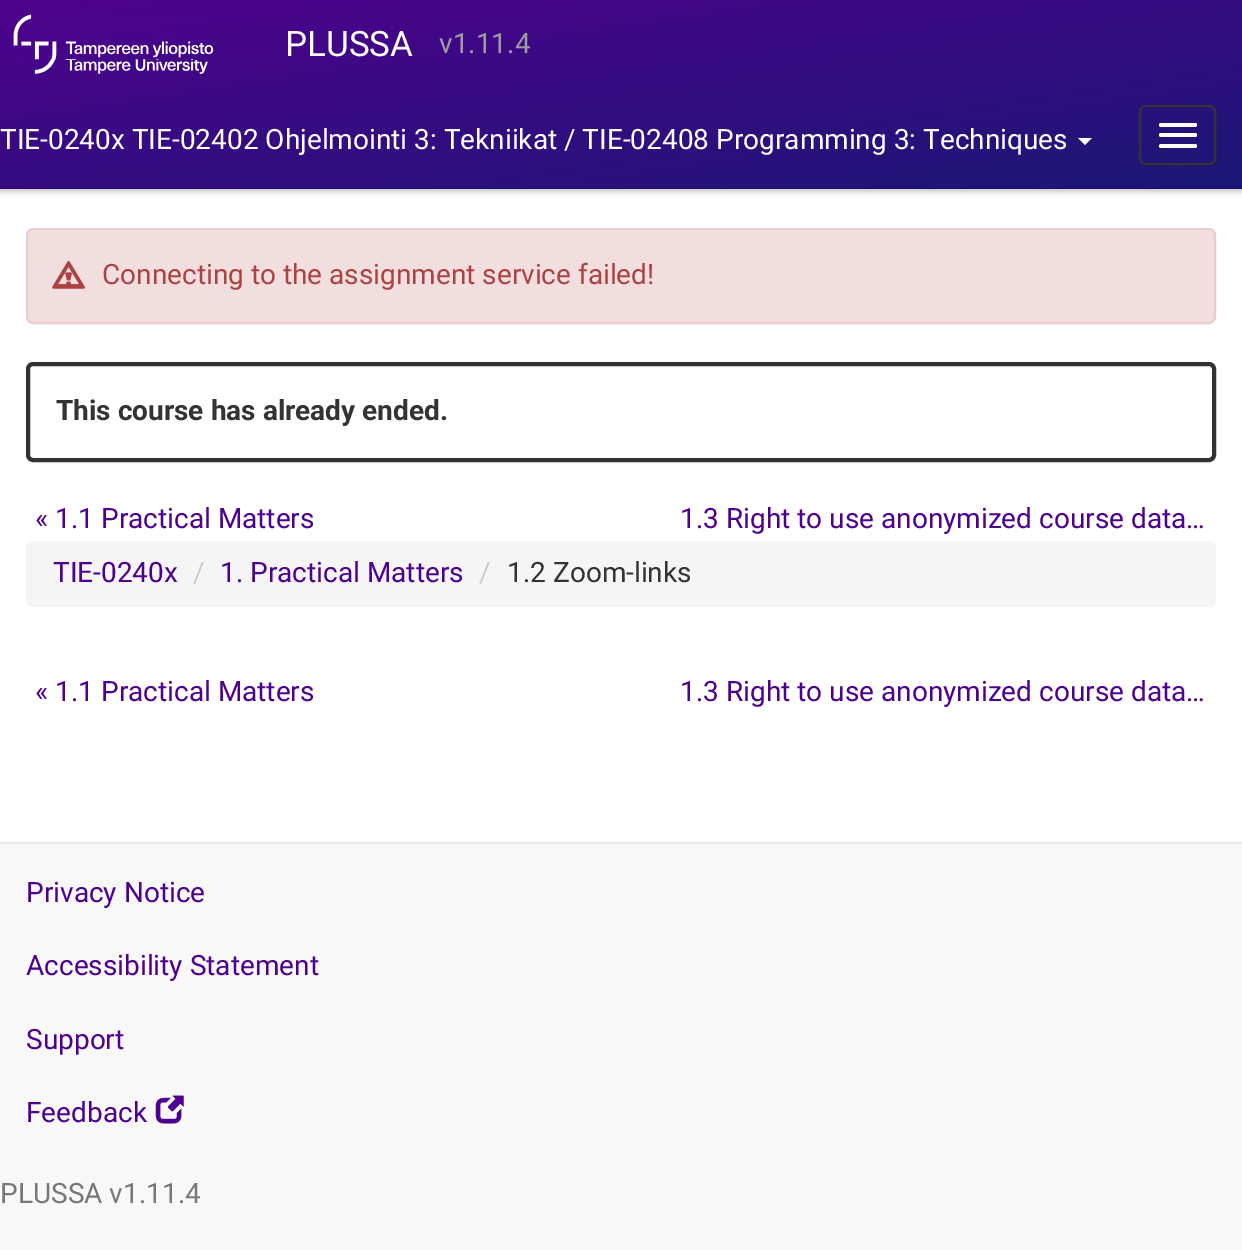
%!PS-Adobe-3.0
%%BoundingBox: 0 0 1242 1250
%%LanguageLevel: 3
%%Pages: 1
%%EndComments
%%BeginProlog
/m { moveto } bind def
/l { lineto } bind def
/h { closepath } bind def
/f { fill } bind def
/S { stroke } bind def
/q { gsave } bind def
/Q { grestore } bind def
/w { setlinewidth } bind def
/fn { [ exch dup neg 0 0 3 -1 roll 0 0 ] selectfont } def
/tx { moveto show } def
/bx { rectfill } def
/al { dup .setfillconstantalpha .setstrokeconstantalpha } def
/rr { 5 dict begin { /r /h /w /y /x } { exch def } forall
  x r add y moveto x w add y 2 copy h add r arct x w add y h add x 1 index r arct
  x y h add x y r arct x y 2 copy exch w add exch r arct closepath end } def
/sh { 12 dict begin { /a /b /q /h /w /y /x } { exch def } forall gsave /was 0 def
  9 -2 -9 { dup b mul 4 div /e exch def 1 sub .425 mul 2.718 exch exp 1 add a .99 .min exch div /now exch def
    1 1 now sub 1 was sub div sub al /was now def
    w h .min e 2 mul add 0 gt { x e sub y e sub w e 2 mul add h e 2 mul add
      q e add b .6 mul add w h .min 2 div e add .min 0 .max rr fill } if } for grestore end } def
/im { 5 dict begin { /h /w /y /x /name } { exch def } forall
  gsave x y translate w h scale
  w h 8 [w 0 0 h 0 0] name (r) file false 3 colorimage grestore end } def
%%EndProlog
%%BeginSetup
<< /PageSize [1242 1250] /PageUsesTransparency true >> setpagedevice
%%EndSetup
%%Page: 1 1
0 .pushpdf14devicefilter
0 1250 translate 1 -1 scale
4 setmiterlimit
1 setgray
0 0 1242 1250 bx
0 setgray
0 2 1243 189 0 3.5 0.25 sh
q 0 0 m 1242 0 l 1242 187 l 0 187 l h clip newpath
<< /ShadingType 2 /ColorSpace /DeviceRGB /Coords [593 -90 649 279] /Extend [true true] /Function << /FunctionType 2 /Domain [0 1] /C0 [0.31 0.004 0.557] /C1 [0.106 0.094 0.455] /N 1 >> >> shfill Q
q 0 187 m 1242 187 l 1242 189 l 0 189 l h clip newpath
<< /ShadingType 2 /ColorSpace /DeviceRGB /Coords [593 -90 649 279] /Extend [true true] /Function << /FunctionType 2 /Domain [0 1] /C0 [0.278 0.004 0.502] /C1 [0.094 0.086 0.408] /N 1 >> >> shfill Q
(image0.raw) 13 14 201 60 im
/Roboto-Regular 35 fn
1 setgray
(PLUSSA) 285 56 tx
/Roboto-Regular 28 fn
0.616 setgray
(v1.11.4) 439 53 tx
1 setgray
(TIE-0240x TIE-02402 Ohjelmointi 3: Tekniikat / TIE-02408 Programming 3: Techniques) 0 149 tx
1078 138 m 1092 138 l 1085 145 l h f
0.2 setgray
2 w
1140 106 75 58 6 rr S
1 setgray
1159 123 38 4 2 rr f
1159 133 38 4 2 rr f
1159 144 38 4 2 rr f
0.949 0.871 0.871 setrgbcolor
27 229 1188 94 6 rr q f Q
0.922 0.8 0.82 setrgbcolor
S
(image1.raw) 52 260 33 29 im
0.663 0.267 0.259 setrgbcolor
(Connecting to the assignment service failed!) 102 284 tx
0.2 setgray
4 w
28 364 1186 96 5 rr S
/Roboto-Bold 28 fn
(This course has already ended.) 56 420 tx
/Roboto-Regular 28 fn
0.306 0 0.557 setrgbcolor
(« 1.1 Practical Matters) 35 528 tx
(1.3 Right to use anonymized course data…) 680 528 tx
0.961 setgray
26 541 1190 66 7 rr f
0.306 0 0.557 setrgbcolor
(TIE-0240x) 53 582 tx
0.8 setgray
(/) 193 582 tx
0.306 0 0.557 setrgbcolor
(1. Practical Matters) 220 582 tx
0.8 setgray
(/) 479 582 tx
0.2 setgray
(1.2 Zoom-links) 507 582 tx
0.306 0 0.557 setrgbcolor
(« 1.1 Practical Matters) 35 701 tx
(1.3 Right to use anonymized course data…) 680 701 tx
0.973 setgray
0 844 1242 406 bx
0.906 setgray
0 842 1242 2 bx
0.306 0 0.557 setrgbcolor
(Privacy Notice) 26 902 tx
(Accessibility Statement) 26 975 tx
(Support) 26 1049 tx
(Feedback) 26 1122 tx
(image2.raw) 155 1095 29 29 im
0.467 setgray
(PLUSSA v1.11.4) 0 1203 tx
.poppdf14devicefilter showpage
%%EOF
